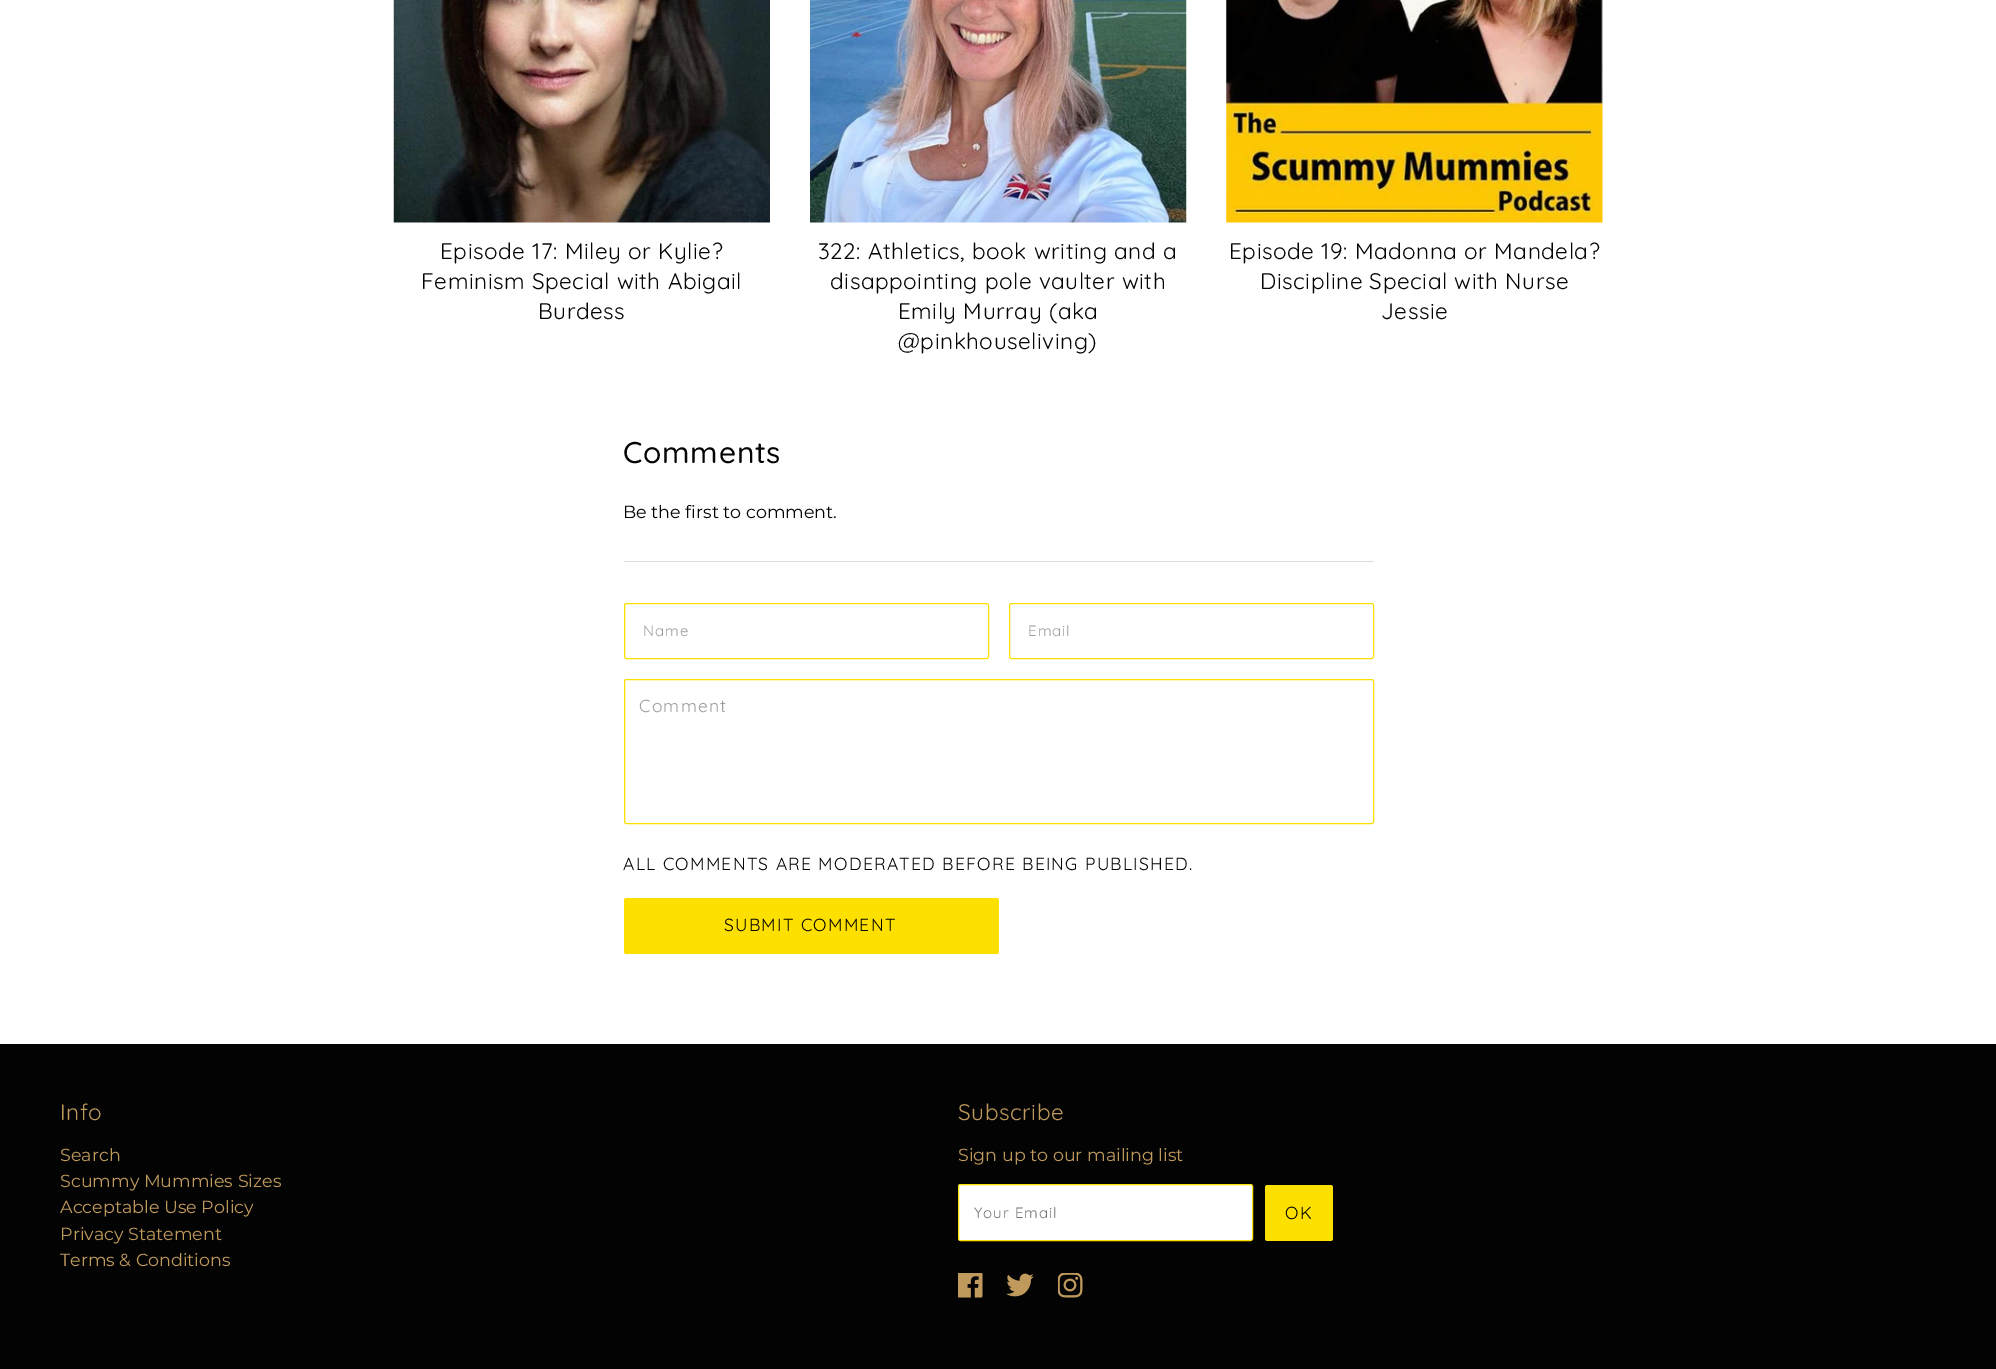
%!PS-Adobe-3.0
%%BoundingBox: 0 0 1996 1369
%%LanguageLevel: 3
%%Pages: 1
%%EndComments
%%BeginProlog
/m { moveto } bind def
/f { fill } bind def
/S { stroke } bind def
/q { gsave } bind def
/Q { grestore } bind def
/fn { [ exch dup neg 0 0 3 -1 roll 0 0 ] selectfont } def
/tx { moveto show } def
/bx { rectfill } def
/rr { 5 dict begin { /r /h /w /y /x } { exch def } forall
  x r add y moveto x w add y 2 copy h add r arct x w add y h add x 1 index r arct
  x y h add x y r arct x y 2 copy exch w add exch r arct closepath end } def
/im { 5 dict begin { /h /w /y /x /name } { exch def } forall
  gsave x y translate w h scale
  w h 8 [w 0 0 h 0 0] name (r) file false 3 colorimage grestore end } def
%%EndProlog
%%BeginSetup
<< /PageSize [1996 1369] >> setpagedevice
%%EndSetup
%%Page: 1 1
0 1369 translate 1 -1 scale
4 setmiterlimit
1 setgray
0 0 1996 1369 bx
(image0.raw) 393 0 377 223 im
/Quicksand-Regular 22.5 fn
0.012 setgray
440 259 m 0.55 0 (Episode 17: Miley or Kylie?) ashow
421 289 m 0.55 0 (Feminism Special with Abigail) ashow
538 319 m 0.55 0 (Burdess) ashow
(image1.raw) 810 0 377 223 im
818 259 m 0.55 0 (322: Athletics, book writing and a) ashow
830 289 m 0.55 0 (disappointing pole vaulter with) ashow
898 319 m 0.55 0 (Emily Murray \(aka) ashow
898 349 m 0.55 0 (@pinkhouseliving\)) ashow
(image2.raw) 1226 0 377 223 im
1229 259 m 0.55 0 (Episode 19: Madonna or Mandela?) ashow
1260 289 m 0.55 0 (Discipline Special with Nurse) ashow
1381 319 m 0.55 0 (Jessie) ashow
/Quicksand-Medium 30 fn
623 463 m 0.75 0 (Comments) ashow
/Montserrat-Regular 17.5 fn
(Be the first to comment.) 623 518 tx
0.867 setgray
624 561 750 1 bx
0.996 0.878 0 setrgbcolor
624.5 603.5 364 55 2 rr S
/Quicksand-Regular 15 fn
0.62 setgray
643 636 m 1 0 (Name) ashow
0.996 0.878 0 setrgbcolor
1009.5 603.5 364 55 2 rr S
0.62 setgray
1028 636 m 1 0 (Email) ashow
0.996 0.878 0 setrgbcolor
624.5 679.5 749 144 2 rr S
/Quicksand-Regular 17.5 fn
0.62 setgray
639 712 m 1.25 0 (Comment) ashow
0.012 setgray
623 870 m 1.25 0 (ALL COMMENTS ARE MODERATED BEFORE BEING PUBLISHED.) ashow
0.996 0.878 0 setrgbcolor
624 898 375 56 2.5 rr f
0.012 setgray
724 931 m 1.25 0 (SUBMIT COMMENT) ashow
0 1044 1996 325 bx
/Quicksand-Regular 22.5 fn
0.753 0.604 0.365 setrgbcolor
60 1120 m 0.55 0 (Info) ashow
/Montserrat-Regular 17.5 fn
(Search) 60 1161 tx
(Scummy Mummies Sizes) 60 1187 tx
(Acceptable Use Policy) 60 1213 tx
(Privacy Statement) 60 1240 tx
(Terms & Conditions) 60 1266 tx
/Quicksand-Regular 22.5 fn
958 1120 m 0.55 0 (Subscribe) ashow
/Montserrat-Regular 17.5 fn
(Sign up to our mailing list) 958 1161 tx
1 setgray
958.5 1184.5 294 56 2 rr q f Q
0.996 0.878 0 setrgbcolor
S
/Quicksand-Regular 15 fn
0.459 setgray
974 1218 m 1 0 (Your Email) ashow
0.996 0.878 0 setrgbcolor
1265 1185 68 56 2.5 rr f
/Quicksand-Regular 17.5 fn
0.012 setgray
1285 1219 m 1.25 0 (OK) ashow
(image3.raw) 958 1273 25 25 im
(image4.raw) 1006 1273 28 24 im
(image5.raw) 1058 1273 25 25 im
showpage
%%EOF
